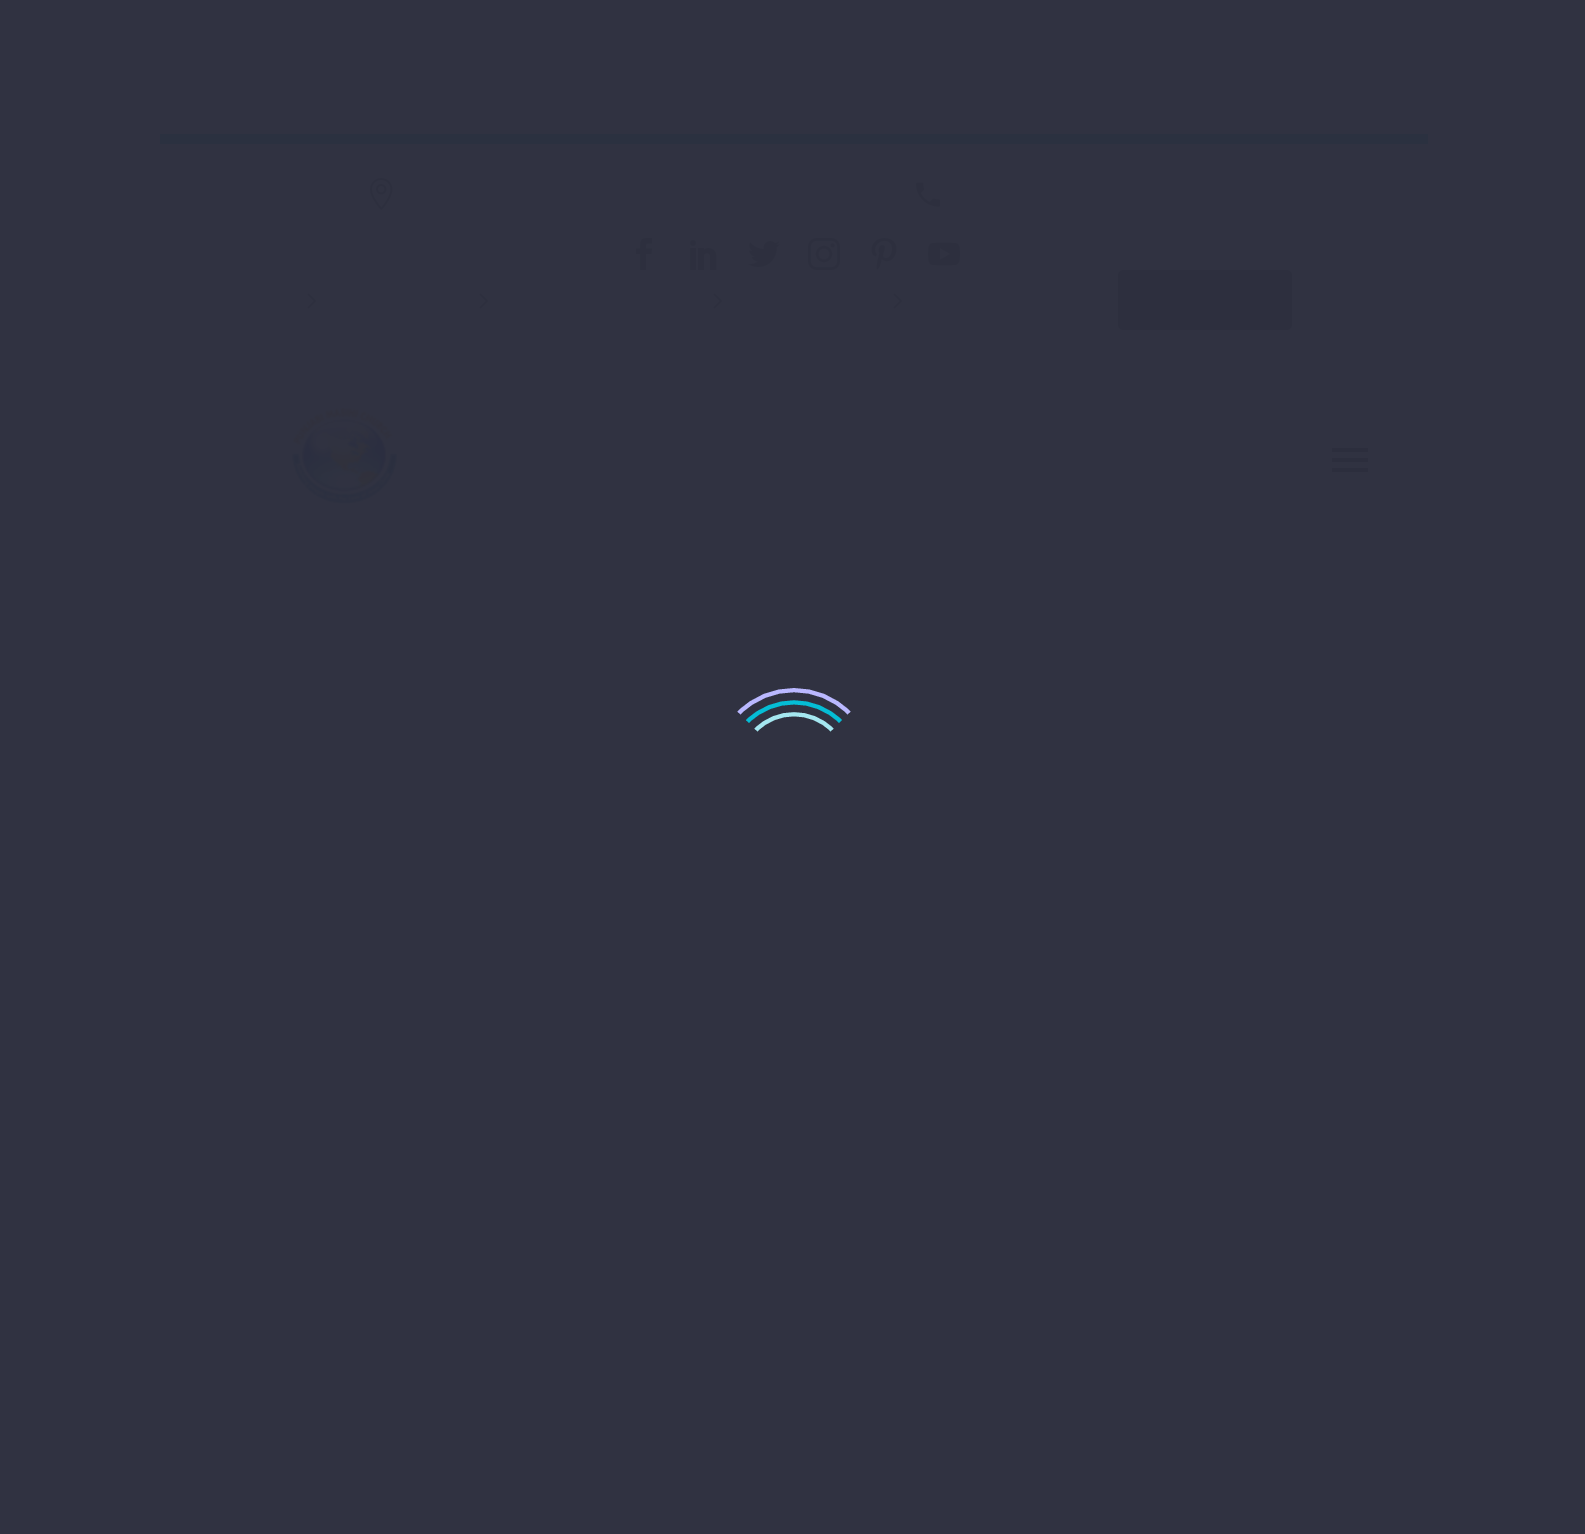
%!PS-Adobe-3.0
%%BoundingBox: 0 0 1585 1534
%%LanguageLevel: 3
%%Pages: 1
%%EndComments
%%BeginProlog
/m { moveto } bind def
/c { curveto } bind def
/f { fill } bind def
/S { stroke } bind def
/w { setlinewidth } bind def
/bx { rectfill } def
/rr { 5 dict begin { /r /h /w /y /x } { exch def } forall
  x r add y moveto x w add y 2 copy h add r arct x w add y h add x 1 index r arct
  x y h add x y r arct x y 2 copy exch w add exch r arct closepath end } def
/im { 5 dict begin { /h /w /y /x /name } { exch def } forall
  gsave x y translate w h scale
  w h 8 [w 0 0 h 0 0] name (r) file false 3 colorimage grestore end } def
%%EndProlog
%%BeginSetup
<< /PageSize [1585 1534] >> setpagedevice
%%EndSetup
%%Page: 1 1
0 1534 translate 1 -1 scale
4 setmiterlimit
0.188 0.196 0.255 setrgbcolor
0 0 1585 1534 bx
0.169 0.192 0.251 setrgbcolor
160 134 1268 10 bx
(image0.raw) 370 178 23 32 im
(image1.raw) 916 182 24 25 im
(image2.raw) 636 238 17 32 im
(image3.raw) 690 240 27 30 im
(image4.raw) 748 241 32 26 im
(image5.raw) 808 238 32 32 im
(image6.raw) 871 238 26 32 im
(image7.raw) 928 242 32 24 im
(image8.raw) 307 293 9 16 im
(image8.raw) 479 293 9 16 im
(image8.raw) 713 293 9 16 im
(image8.raw) 893 293 9 16 im
0.176 0.184 0.243 setrgbcolor
1118 270 174 60 6 rr f
(image9.raw) 291 407 108 98 im
0.173 0.18 0.239 setrgbcolor
1332 448 36 4 bx
1332 458 36 4 bx
1332 468 36 4 bx
0.729 0.722 1 setrgbcolor
4 w
739 713 m 769 682.5 819 682.5 849 713 c S
0.02 0.741 0.835 setrgbcolor
747.5 721.5 m 773 696 815 696 840.5 721.5 c S
0.647 0.906 0.941 setrgbcolor
756 730 m 776.5 709 811.5 709 832 730 c S
showpage
%%EOF
